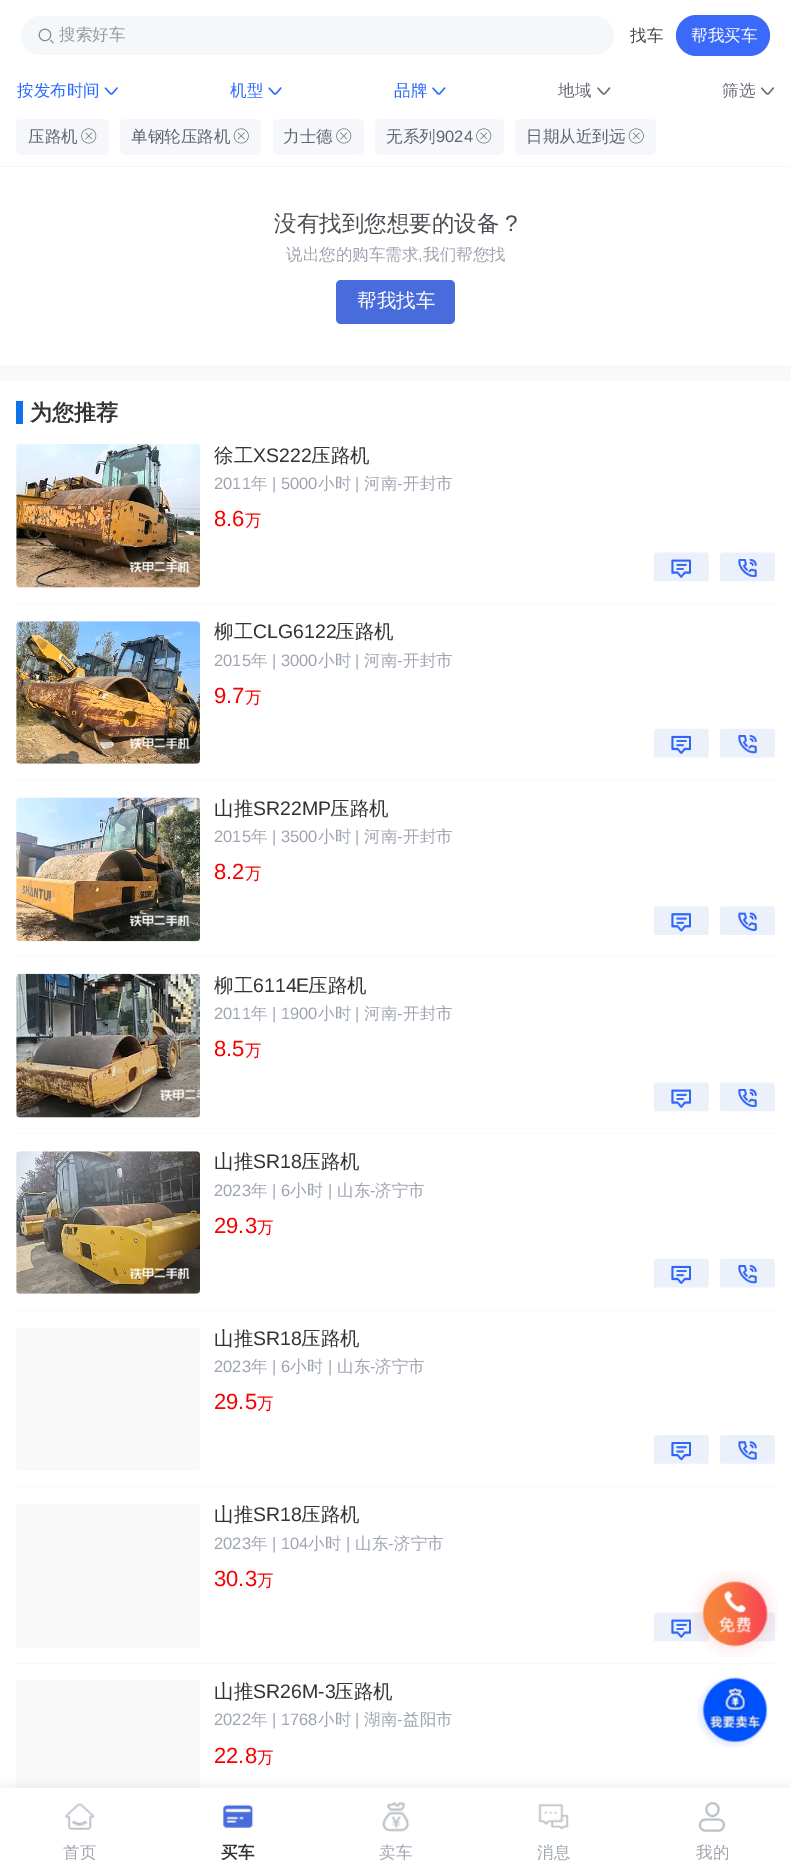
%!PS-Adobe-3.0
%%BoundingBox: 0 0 791 1870
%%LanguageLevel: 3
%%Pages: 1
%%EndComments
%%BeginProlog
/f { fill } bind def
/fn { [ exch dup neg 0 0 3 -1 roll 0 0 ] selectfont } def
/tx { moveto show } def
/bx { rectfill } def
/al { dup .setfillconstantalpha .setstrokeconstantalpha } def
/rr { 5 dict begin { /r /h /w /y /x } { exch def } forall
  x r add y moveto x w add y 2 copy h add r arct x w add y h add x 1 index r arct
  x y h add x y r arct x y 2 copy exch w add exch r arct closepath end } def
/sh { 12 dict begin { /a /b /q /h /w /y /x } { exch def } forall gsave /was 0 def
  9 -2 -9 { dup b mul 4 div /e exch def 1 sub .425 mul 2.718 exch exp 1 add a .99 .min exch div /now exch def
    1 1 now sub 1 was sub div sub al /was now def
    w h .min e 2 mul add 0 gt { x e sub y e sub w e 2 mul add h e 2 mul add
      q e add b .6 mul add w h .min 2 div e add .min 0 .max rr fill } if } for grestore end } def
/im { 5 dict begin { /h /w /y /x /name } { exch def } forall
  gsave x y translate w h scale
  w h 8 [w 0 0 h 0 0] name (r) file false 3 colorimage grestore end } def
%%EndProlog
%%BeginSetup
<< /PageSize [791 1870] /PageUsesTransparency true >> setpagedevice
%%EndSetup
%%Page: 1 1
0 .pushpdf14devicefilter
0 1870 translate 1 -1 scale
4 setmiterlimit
0.976 setgray
0 0 791 1870 bx
1 setgray
0 0 791 365 bx
0.965 setgray
0 166 791 1 bx
0.961 0.973 0.98 setrgbcolor
21 16 593 39 19.5 rr f
(image0.raw) 38 28 16 16 im
/WenQuanYiZenHei-Medium 16.5 fn
0.6 setgray
(搜索好车) 59 40 tx
0.267 setgray
(找车) 630 41 tx
0.231 0.416 0.984 setrgbcolor
676 15 94 41 20.5 rr f
1 setgray
(帮我买车) 691 41 tx
0.165 0.416 1 setrgbcolor
(按发布时间) 17 96 tx
(image1.raw) 104 87 14 8 im
(机型) 230 96 tx
(image2.raw) 268 87 14 8 im
(品牌) 394 96 tx
(image3.raw) 432 87 14 8 im
0.416 0.416 0.467 setrgbcolor
(地域) 558 96 tx
(image4.raw) 597 87 14 8 im
(筛选) 722 96 tx
(image5.raw) 760 87 15 8 im
0.961 0.969 0.98 setrgbcolor
16 119 93 36 6 rr f
0.373 0.4 0.439 setrgbcolor
(压路机) 28 142 tx
(image6.raw) 81 128 16 16 im
0.961 0.969 0.98 setrgbcolor
120 119 141 36 6 rr f
0.373 0.4 0.439 setrgbcolor
(单钢轮压路机) 131 142 tx
(image7.raw) 233 128 16 16 im
0.961 0.969 0.98 setrgbcolor
273 119 91 36 6 rr f
0.373 0.4 0.439 setrgbcolor
(力士德) 283 142 tx
(image6.raw) 336 128 16 16 im
0.961 0.969 0.98 setrgbcolor
375 119 129 36 6 rr f
0.373 0.4 0.439 setrgbcolor
(无系列) 386 142 tx
/LiberationSans-Regular 16.5 fn
(9024) 436 142 tx
(image6.raw) 476 128 16 16 im
0.961 0.969 0.98 setrgbcolor
515 119 141 36 6 rr f
/WenQuanYiZenHei-Medium 16.5 fn
0.373 0.4 0.439 setrgbcolor
(日期从近到远) 526 142 tx
(image7.raw) 628 128 16 16 im
/WenQuanYiZenHei-Medium 22.5 fn
0.29 0.29 0.325 setrgbcolor
(没有找到您想要的设备) 274 231 tx
/LiberationSans-Regular 22.5 fn
(?) 505 231 tx
/WenQuanYiZenHei-Medium 16.5 fn
0.62 0.643 0.686 setrgbcolor
(说出您的购车需求) 286 260 tx
/LiberationSans-Regular 16.5 fn
(,) 418 260 tx
/WenQuanYiZenHei-Medium 16.5 fn
(我们帮您找) 423 260 tx
0.282 0.424 0.863 setrgbcolor
336 280 119 44 5 rr f
/WenQuanYiZenHei-Medium 19.5 fn
1 setgray
(帮我找车) 357 307 tx
0 381 791 1407 bx
0.059 0.447 0.922 setrgbcolor
16 401 7 23 bx
/WenQuanYiZenHei-Bold 22 fn
0.2 setgray
(为您推荐) 30 420 tx
0.976 setgray
16 444 184 144 4 rr f
(image8.raw) 16 443 184 145 im
/WenQuanYiZenHei-Medium 19.5 fn
0.2 setgray
(徐工) 214 462 tx
/LiberationSans-Regular 19.5 fn
(XS222) 253 462 tx
/WenQuanYiZenHei-Medium 19.5 fn
(压路机) 311 462 tx
/LiberationSans-Regular 16.5 fn
0.62 0.643 0.686 setrgbcolor
(2011) 214 489 tx
/WenQuanYiZenHei-Medium 16.5 fn
(年) 251 489 tx
/LiberationSans-Regular 16.5 fn
(| 5000) 272 489 tx
/WenQuanYiZenHei-Medium 16.5 fn
(小时) 318 489 tx
/LiberationSans-Regular 16.5 fn
(|) 355 489 tx
/WenQuanYiZenHei-Medium 16.5 fn
(河南) 364 489 tx
/LiberationSans-Regular 16.5 fn
(-) 397 489 tx
/WenQuanYiZenHei-Medium 16.5 fn
(开封市) 403 489 tx
/LiberationSans-Regular 22 fn
0.961 0 0 setrgbcolor
(8.6) 214 526 tx
/WenQuanYiZenHei-Medium 16.5 fn
(万) 245 526 tx
(image9.raw) 653 552 56 30 im
(image10.raw) 720 552 55 30 im
0.976 setgray
16 603 759 1 bx
16 621 184 143 4 rr f
(image11.raw) 16 621 184 143 im
/WenQuanYiZenHei-Medium 19.5 fn
0.2 setgray
(柳工) 214 638 tx
/LiberationSans-Regular 19.5 fn
(CLG6122) 253 638 tx
/WenQuanYiZenHei-Medium 19.5 fn
(压路机) 335 638 tx
/LiberationSans-Regular 16.5 fn
0.62 0.643 0.686 setrgbcolor
(2015) 214 666 tx
/WenQuanYiZenHei-Medium 16.5 fn
(年) 251 666 tx
/LiberationSans-Regular 16.5 fn
(| 3000) 272 666 tx
/WenQuanYiZenHei-Medium 16.5 fn
(小时) 318 666 tx
/LiberationSans-Regular 16.5 fn
(|) 355 666 tx
/WenQuanYiZenHei-Medium 16.5 fn
(河南) 364 666 tx
/LiberationSans-Regular 16.5 fn
(-) 397 666 tx
/WenQuanYiZenHei-Medium 16.5 fn
(开封市) 403 666 tx
/LiberationSans-Regular 22 fn
0.961 0 0 setrgbcolor
(9.7) 214 703 tx
/WenQuanYiZenHei-Medium 16.5 fn
(万) 245 703 tx
(image12.raw) 653 728 56 30 im
(image13.raw) 720 728 55 30 im
0.976 setgray
16 780 759 1 bx
16 798 184 143 4 rr f
(image14.raw) 16 797 184 145 im
/WenQuanYiZenHei-Medium 19.5 fn
0.2 setgray
(山推) 214 815 tx
/LiberationSans-Regular 19.5 fn
(SR22MP) 253 815 tx
/WenQuanYiZenHei-Medium 19.5 fn
(压路机) 330 815 tx
/LiberationSans-Regular 16.5 fn
0.62 0.643 0.686 setrgbcolor
(2015) 214 842 tx
/WenQuanYiZenHei-Medium 16.5 fn
(年) 251 842 tx
/LiberationSans-Regular 16.5 fn
(| 3500) 272 842 tx
/WenQuanYiZenHei-Medium 16.5 fn
(小时) 318 842 tx
/LiberationSans-Regular 16.5 fn
(|) 355 842 tx
/WenQuanYiZenHei-Medium 16.5 fn
(河南) 364 842 tx
/LiberationSans-Regular 16.5 fn
(-) 397 842 tx
/WenQuanYiZenHei-Medium 16.5 fn
(开封市) 403 842 tx
/LiberationSans-Regular 22 fn
0.961 0 0 setrgbcolor
(8.2) 214 879 tx
/WenQuanYiZenHei-Medium 16.5 fn
(万) 245 879 tx
(image15.raw) 653 906 56 29 im
(image16.raw) 720 906 55 29 im
0.976 setgray
16 956 759 1 bx
16 974 184 144 4 rr f
(image17.raw) 16 973 184 145 im
/WenQuanYiZenHei-Medium 19.5 fn
0.2 setgray
(柳工) 214 992 tx
/LiberationSans-Regular 19.5 fn
(6114E) 253 992 tx
/WenQuanYiZenHei-Medium 19.5 fn
(压路机) 308 992 tx
/LiberationSans-Regular 16.5 fn
0.62 0.643 0.686 setrgbcolor
(2011) 214 1019 tx
/WenQuanYiZenHei-Medium 16.5 fn
(年) 251 1019 tx
/LiberationSans-Regular 16.5 fn
(| 1900) 272 1019 tx
/WenQuanYiZenHei-Medium 16.5 fn
(小时) 318 1019 tx
/LiberationSans-Regular 16.5 fn
(|) 355 1019 tx
/WenQuanYiZenHei-Medium 16.5 fn
(河南) 364 1019 tx
/LiberationSans-Regular 16.5 fn
(-) 397 1019 tx
/WenQuanYiZenHei-Medium 16.5 fn
(开封市) 403 1019 tx
/LiberationSans-Regular 22 fn
0.961 0 0 setrgbcolor
(8.5) 214 1056 tx
/WenQuanYiZenHei-Medium 16.5 fn
(万) 245 1056 tx
(image9.raw) 653 1082 56 30 im
(image10.raw) 720 1082 55 30 im
0.976 setgray
16 1133 759 1 bx
16 1151 184 143 4 rr f
(image18.raw) 16 1151 184 143 im
/WenQuanYiZenHei-Medium 19.5 fn
0.2 setgray
(山推) 214 1168 tx
/LiberationSans-Regular 19.5 fn
(SR18) 253 1168 tx
/WenQuanYiZenHei-Medium 19.5 fn
(压路机) 301 1168 tx
/LiberationSans-Regular 16.5 fn
0.62 0.643 0.686 setrgbcolor
(2023) 214 1196 tx
/WenQuanYiZenHei-Medium 16.5 fn
(年) 251 1196 tx
/LiberationSans-Regular 16.5 fn
(| 6) 272 1196 tx
/WenQuanYiZenHei-Medium 16.5 fn
(小时) 290 1196 tx
/LiberationSans-Regular 16.5 fn
(|) 328 1196 tx
/WenQuanYiZenHei-Medium 16.5 fn
(山东) 337 1196 tx
/LiberationSans-Regular 16.5 fn
(-) 370 1196 tx
/WenQuanYiZenHei-Medium 16.5 fn
(济宁市) 375 1196 tx
/LiberationSans-Regular 22 fn
0.961 0 0 setrgbcolor
(29.3) 214 1233 tx
/WenQuanYiZenHei-Medium 16.5 fn
(万) 257 1233 tx
(image12.raw) 653 1258 56 30 im
(image13.raw) 720 1258 55 30 im
0.976 setgray
16 1310 759 1 bx
16 1328 184 143 4 rr f
/WenQuanYiZenHei-Medium 19.5 fn
0.2 setgray
(山推) 214 1345 tx
/LiberationSans-Regular 19.5 fn
(SR18) 253 1345 tx
/WenQuanYiZenHei-Medium 19.5 fn
(压路机) 301 1345 tx
/LiberationSans-Regular 16.5 fn
0.62 0.643 0.686 setrgbcolor
(2023) 214 1372 tx
/WenQuanYiZenHei-Medium 16.5 fn
(年) 251 1372 tx
/LiberationSans-Regular 16.5 fn
(| 6) 272 1372 tx
/WenQuanYiZenHei-Medium 16.5 fn
(小时) 290 1372 tx
/LiberationSans-Regular 16.5 fn
(|) 328 1372 tx
/WenQuanYiZenHei-Medium 16.5 fn
(山东) 337 1372 tx
/LiberationSans-Regular 16.5 fn
(-) 370 1372 tx
/WenQuanYiZenHei-Medium 16.5 fn
(济宁市) 375 1372 tx
/LiberationSans-Regular 22 fn
0.961 0 0 setrgbcolor
(29.5) 214 1409 tx
/WenQuanYiZenHei-Medium 16.5 fn
(万) 257 1409 tx
(image19.raw) 653 1435 56 29 im
(image20.raw) 720 1435 55 29 im
0.976 setgray
16 1486 759 1 bx
16 1504 184 144 4 rr f
/WenQuanYiZenHei-Medium 19.5 fn
0.2 setgray
(山推) 214 1521 tx
/LiberationSans-Regular 19.5 fn
(SR18) 253 1521 tx
/WenQuanYiZenHei-Medium 19.5 fn
(压路机) 301 1521 tx
/LiberationSans-Regular 16.5 fn
0.62 0.643 0.686 setrgbcolor
(2023) 214 1549 tx
/WenQuanYiZenHei-Medium 16.5 fn
(年) 251 1549 tx
/LiberationSans-Regular 16.5 fn
(| 104) 272 1549 tx
/WenQuanYiZenHei-Medium 16.5 fn
(小时) 308 1549 tx
/LiberationSans-Regular 16.5 fn
(|) 346 1549 tx
/WenQuanYiZenHei-Medium 16.5 fn
(山东) 355 1549 tx
/LiberationSans-Regular 16.5 fn
(-) 388 1549 tx
/WenQuanYiZenHei-Medium 16.5 fn
(济宁市) 394 1549 tx
/LiberationSans-Regular 22 fn
0.961 0 0 setrgbcolor
(30.3) 214 1586 tx
/WenQuanYiZenHei-Medium 16.5 fn
(万) 257 1586 tx
(image9.raw) 653 1612 56 30 im
(image21.raw) 721 1612 54 30 im
0.976 setgray
16 1663 759 1 bx
16 1680 184 144 4 rr f
/WenQuanYiZenHei-Medium 19.5 fn
0.2 setgray
(山推) 214 1698 tx
/LiberationSans-Regular 19.5 fn
(SR26M-3) 253 1698 tx
/WenQuanYiZenHei-Medium 19.5 fn
(压路机) 334 1698 tx
/LiberationSans-Regular 16.5 fn
0.62 0.643 0.686 setrgbcolor
(2022) 214 1725 tx
/WenQuanYiZenHei-Medium 16.5 fn
(年) 251 1725 tx
/LiberationSans-Regular 16.5 fn
(| 1768) 272 1725 tx
/WenQuanYiZenHei-Medium 16.5 fn
(小时) 318 1725 tx
/LiberationSans-Regular 16.5 fn
(|) 355 1725 tx
/WenQuanYiZenHei-Medium 16.5 fn
(湖南) 364 1725 tx
/LiberationSans-Regular 16.5 fn
(-) 397 1725 tx
/WenQuanYiZenHei-Medium 16.5 fn
(益阳市) 403 1725 tx
/LiberationSans-Regular 22 fn
0.961 0 0 setrgbcolor
(22.8) 214 1763 tx
/WenQuanYiZenHei-Medium 16.5 fn
(万) 257 1763 tx
(image22.raw) 692 1571 86 86 im
(image23.raw) 697 1677 71 71 im
0 setgray
0 1785 791 83 0 6 0.06 sh
1 setgray
0 1788 791 82 bx
(image24.raw) 65 1803 30 27 im
0.62 0.643 0.686 setrgbcolor
(首页) 63 1858 tx
(image25.raw) 223 1804 31 24 im
/WenQuanYiZenHei-Bold 16.5 fn
0.2 setgray
(买车) 221 1858 tx
(image26.raw) 382 1801 28 31 im
/WenQuanYiZenHei-Medium 16.5 fn
0.62 0.643 0.686 setrgbcolor
(卖车) 379 1858 tx
(image27.raw) 538 1803 31 27 im
(消息) 537 1858 tx
(image28.raw) 698 1801 28 31 im
(我的) 696 1858 tx
.poppdf14devicefilter showpage
%%EOF
